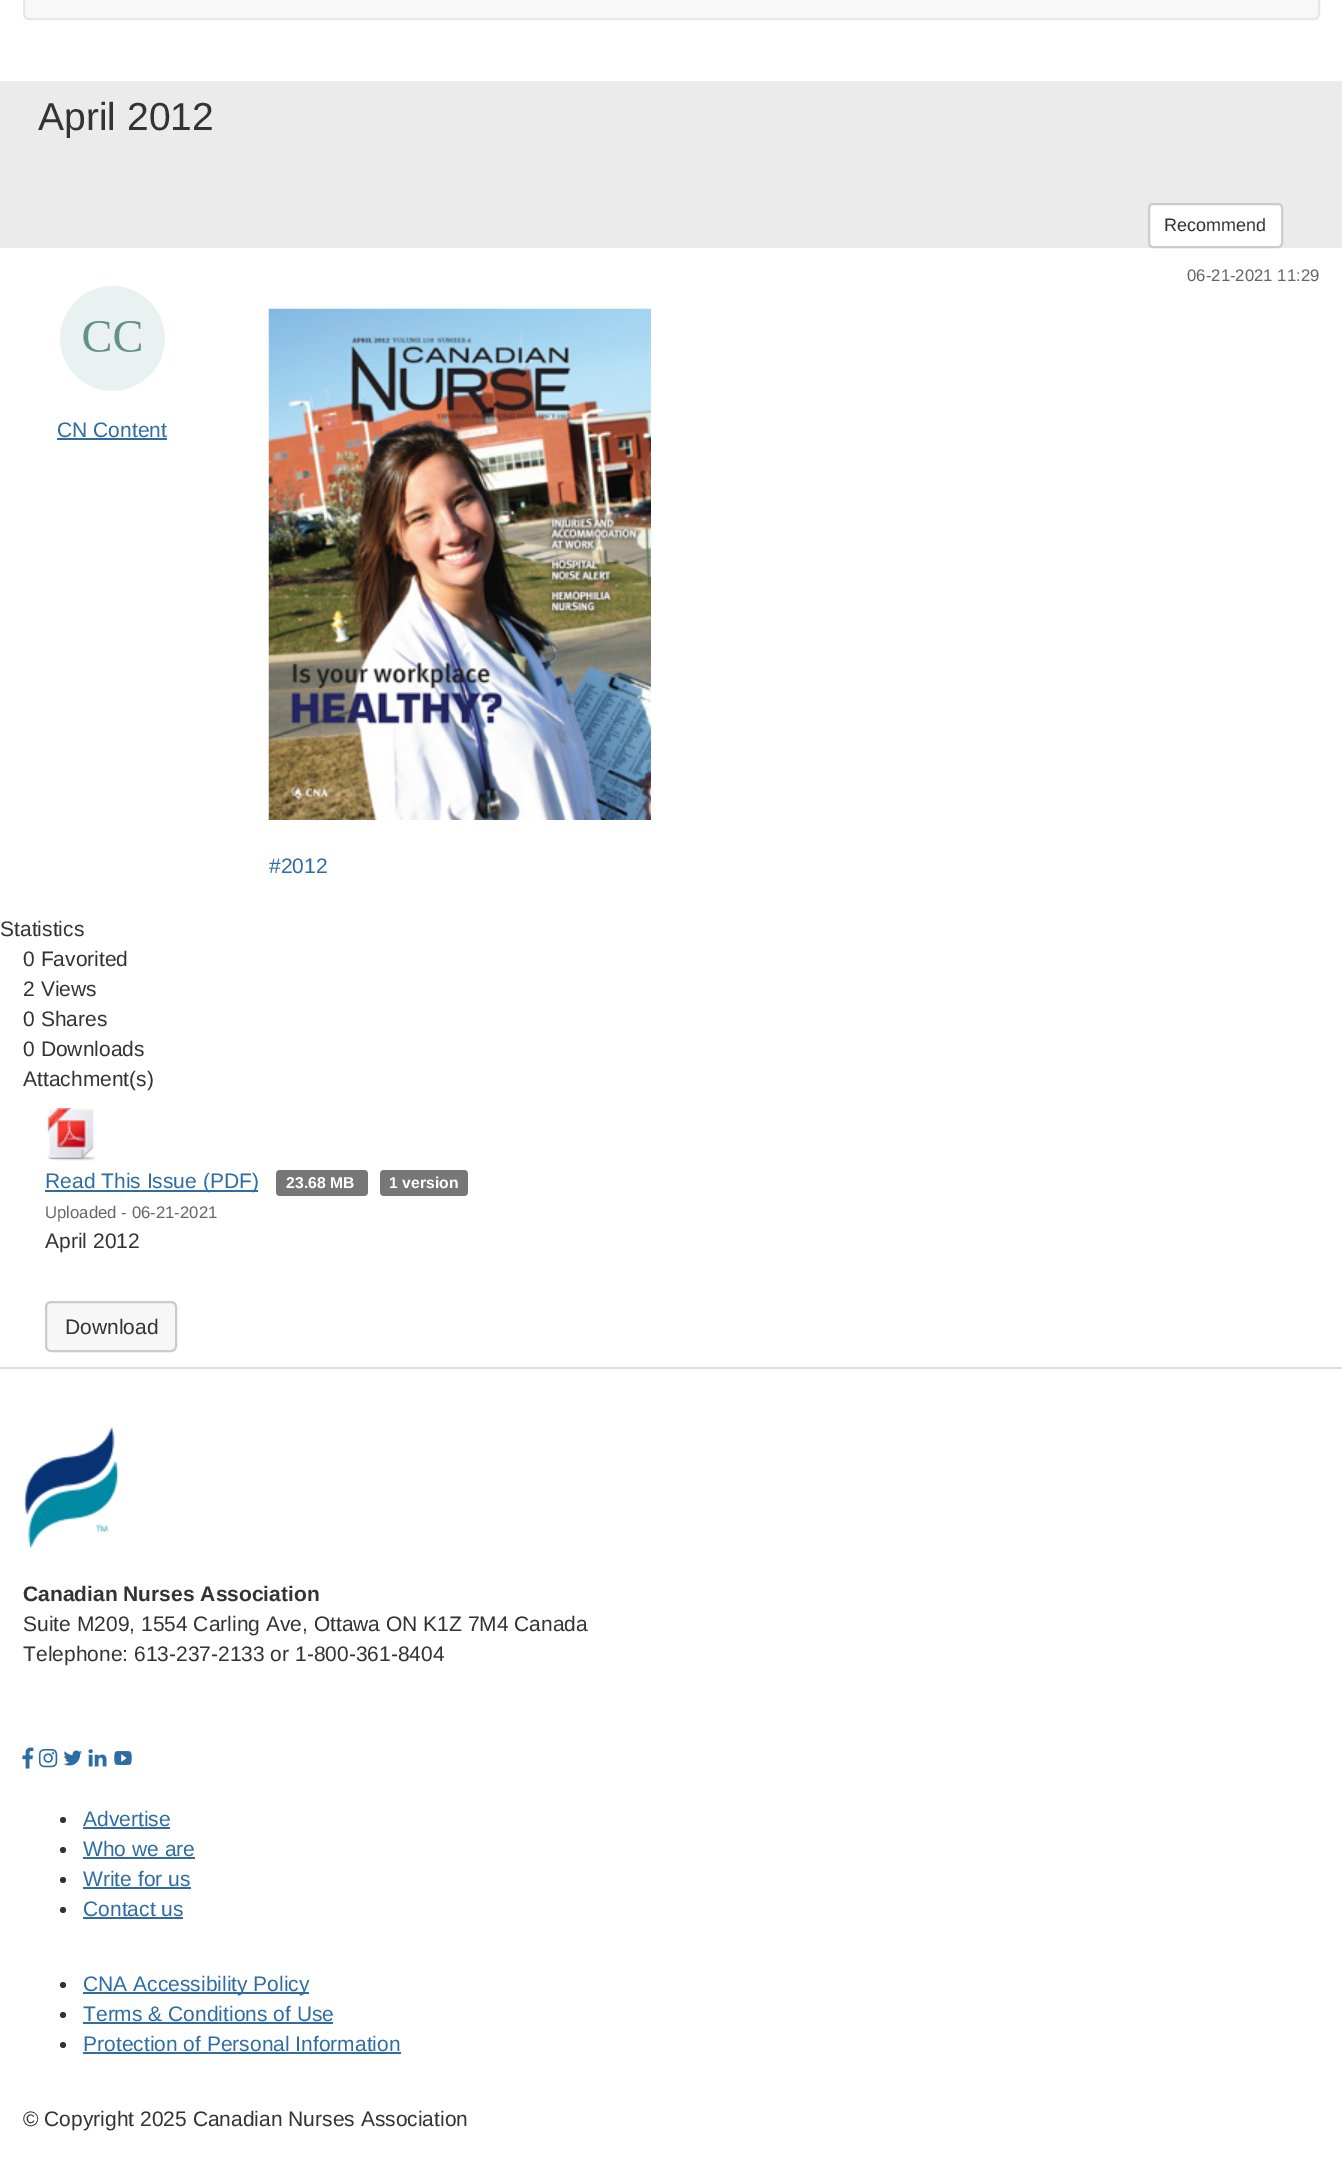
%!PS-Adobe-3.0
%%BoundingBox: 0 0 1342 2162
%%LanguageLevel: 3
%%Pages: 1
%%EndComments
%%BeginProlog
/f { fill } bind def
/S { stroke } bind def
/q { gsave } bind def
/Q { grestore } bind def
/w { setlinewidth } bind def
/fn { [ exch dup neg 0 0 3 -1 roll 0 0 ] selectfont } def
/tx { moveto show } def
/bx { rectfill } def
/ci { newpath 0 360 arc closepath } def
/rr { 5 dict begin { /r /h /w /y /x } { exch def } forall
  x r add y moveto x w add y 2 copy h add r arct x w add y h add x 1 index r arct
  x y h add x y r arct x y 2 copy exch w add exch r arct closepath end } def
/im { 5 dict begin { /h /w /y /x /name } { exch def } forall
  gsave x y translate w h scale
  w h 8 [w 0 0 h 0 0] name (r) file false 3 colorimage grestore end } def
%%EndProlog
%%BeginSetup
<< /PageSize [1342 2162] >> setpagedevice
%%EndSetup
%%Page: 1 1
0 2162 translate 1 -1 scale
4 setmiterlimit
1 setgray
0 0 1342 2162 bx
0.973 setgray
24 -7 1295 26 5 rr q f Q
0.906 setgray
2 w
S
0.922 setgray
0 81 1342 167 bx
/LiberationSans-Regular 39 fn
0.2 setgray
(April 2012) 38 130 tx
1 setgray
1149 204 133 43 4 rr q f Q
0.8 setgray
S
/LiberationSans-Regular 18 fn
0.2 setgray
(Recommend) 1164 231 tx
/LiberationSans-Regular 16.75 fn
0.4 setgray
(06-21-2021 11:29) 1187 281 tx
(image0.raw) 60 286 105 105 im
/LiberationSans-Regular 21 fn
0.18 0.427 0.643 setrgbcolor
(CN Content) 57 437 tx
57 438 110 2 bx
(image1.raw) 268 308 383 512 im
(#2012) 269 873 tx
0.2 setgray
(Statistics) 0 936 tx
(0 Favorited) 23 966 tx
(2 Views) 23 996 tx
(0 Shares) 23 1026 tx
(0 Downloads) 23 1056 tx
(Attachment\(s\)) 23 1086 tx
0.867 setgray
0 1367 1342 2 bx
(image2.raw) 47 1108 49 53 im
0.18 0.427 0.643 setrgbcolor
45 1190 213 2 bx
(Read This Issue \(PDF\)) 45 1188 tx
0.467 setgray
276 1170 92 26 4 rr f
/LiberationSans-Bold 15.75 fn
1 setgray
(23.68 MB) 286 1188 tx
0.467 setgray
380 1170 88 26 4 rr f
1 setgray
(1 version) 389 1188 tx
/LiberationSans-Regular 16.75 fn
0.4 setgray
(Uploaded - 06-21-2021) 45 1218 tx
/LiberationSans-Regular 21 fn
0.2 setgray
(April 2012) 45 1248 tx
0.969 setgray
46 1302 130 49 5 rr q f Q
0.8 setgray
S
0.2 setgray
(Download) 65 1334 tx
(image3.raw) 24 1427 95 121 im
/LiberationSans-Bold 21 fn
(Canadian Nurses Association) 23 1601 tx
/LiberationSans-Regular 21 fn
(Suite M209, 1554 Carling Ave, Ottawa ON K1Z 7M4 Canada) 23 1631 tx
(Telephone: 613-237-2133 or 1-800-361-8404) 23 1661 tx
(image4.raw) 22 1747 12 22 im
(image5.raw) 38 1748 20 20 im
(image6.raw) 63 1750 19 16 im
(image7.raw) 88 1749 19 18 im
(image8.raw) 114 1751 18 14 im
63 1820 3 ci f
0.18 0.427 0.643 setrgbcolor
(Advertise) 83 1826 tx
83 1827 87 2 bx
0.2 setgray
63 1850 3 ci f
0.18 0.427 0.643 setrgbcolor
(Who we are) 83 1856 tx
83 1857 112 2 bx
0.2 setgray
63 1880 3 ci f
0.18 0.427 0.643 setrgbcolor
(Write for us) 83 1886 tx
83 1887 108 2 bx
0.2 setgray
63 1910 3 ci f
0.18 0.427 0.643 setrgbcolor
(Contact us) 83 1916 tx
83 1917 100 2 bx
0.2 setgray
63 1985 3 ci f
0.18 0.427 0.643 setrgbcolor
83 1992 226 2 bx
(CNA Accessibility Policy) 83 1991 tx
0.2 setgray
63 2015 3 ci f
0.18 0.427 0.643 setrgbcolor
(Terms & Conditions of Use) 83 2021 tx
83 2022 250 2 bx
0.2 setgray
63 2045 3 ci f
0.18 0.427 0.643 setrgbcolor
(Protection of Personal Information) 83 2051 tx
83 2052 318 2 bx
0.2 setgray
(© Copyright 2025 Canadian Nurses Association) 23 2126 tx
showpage
%%EOF
